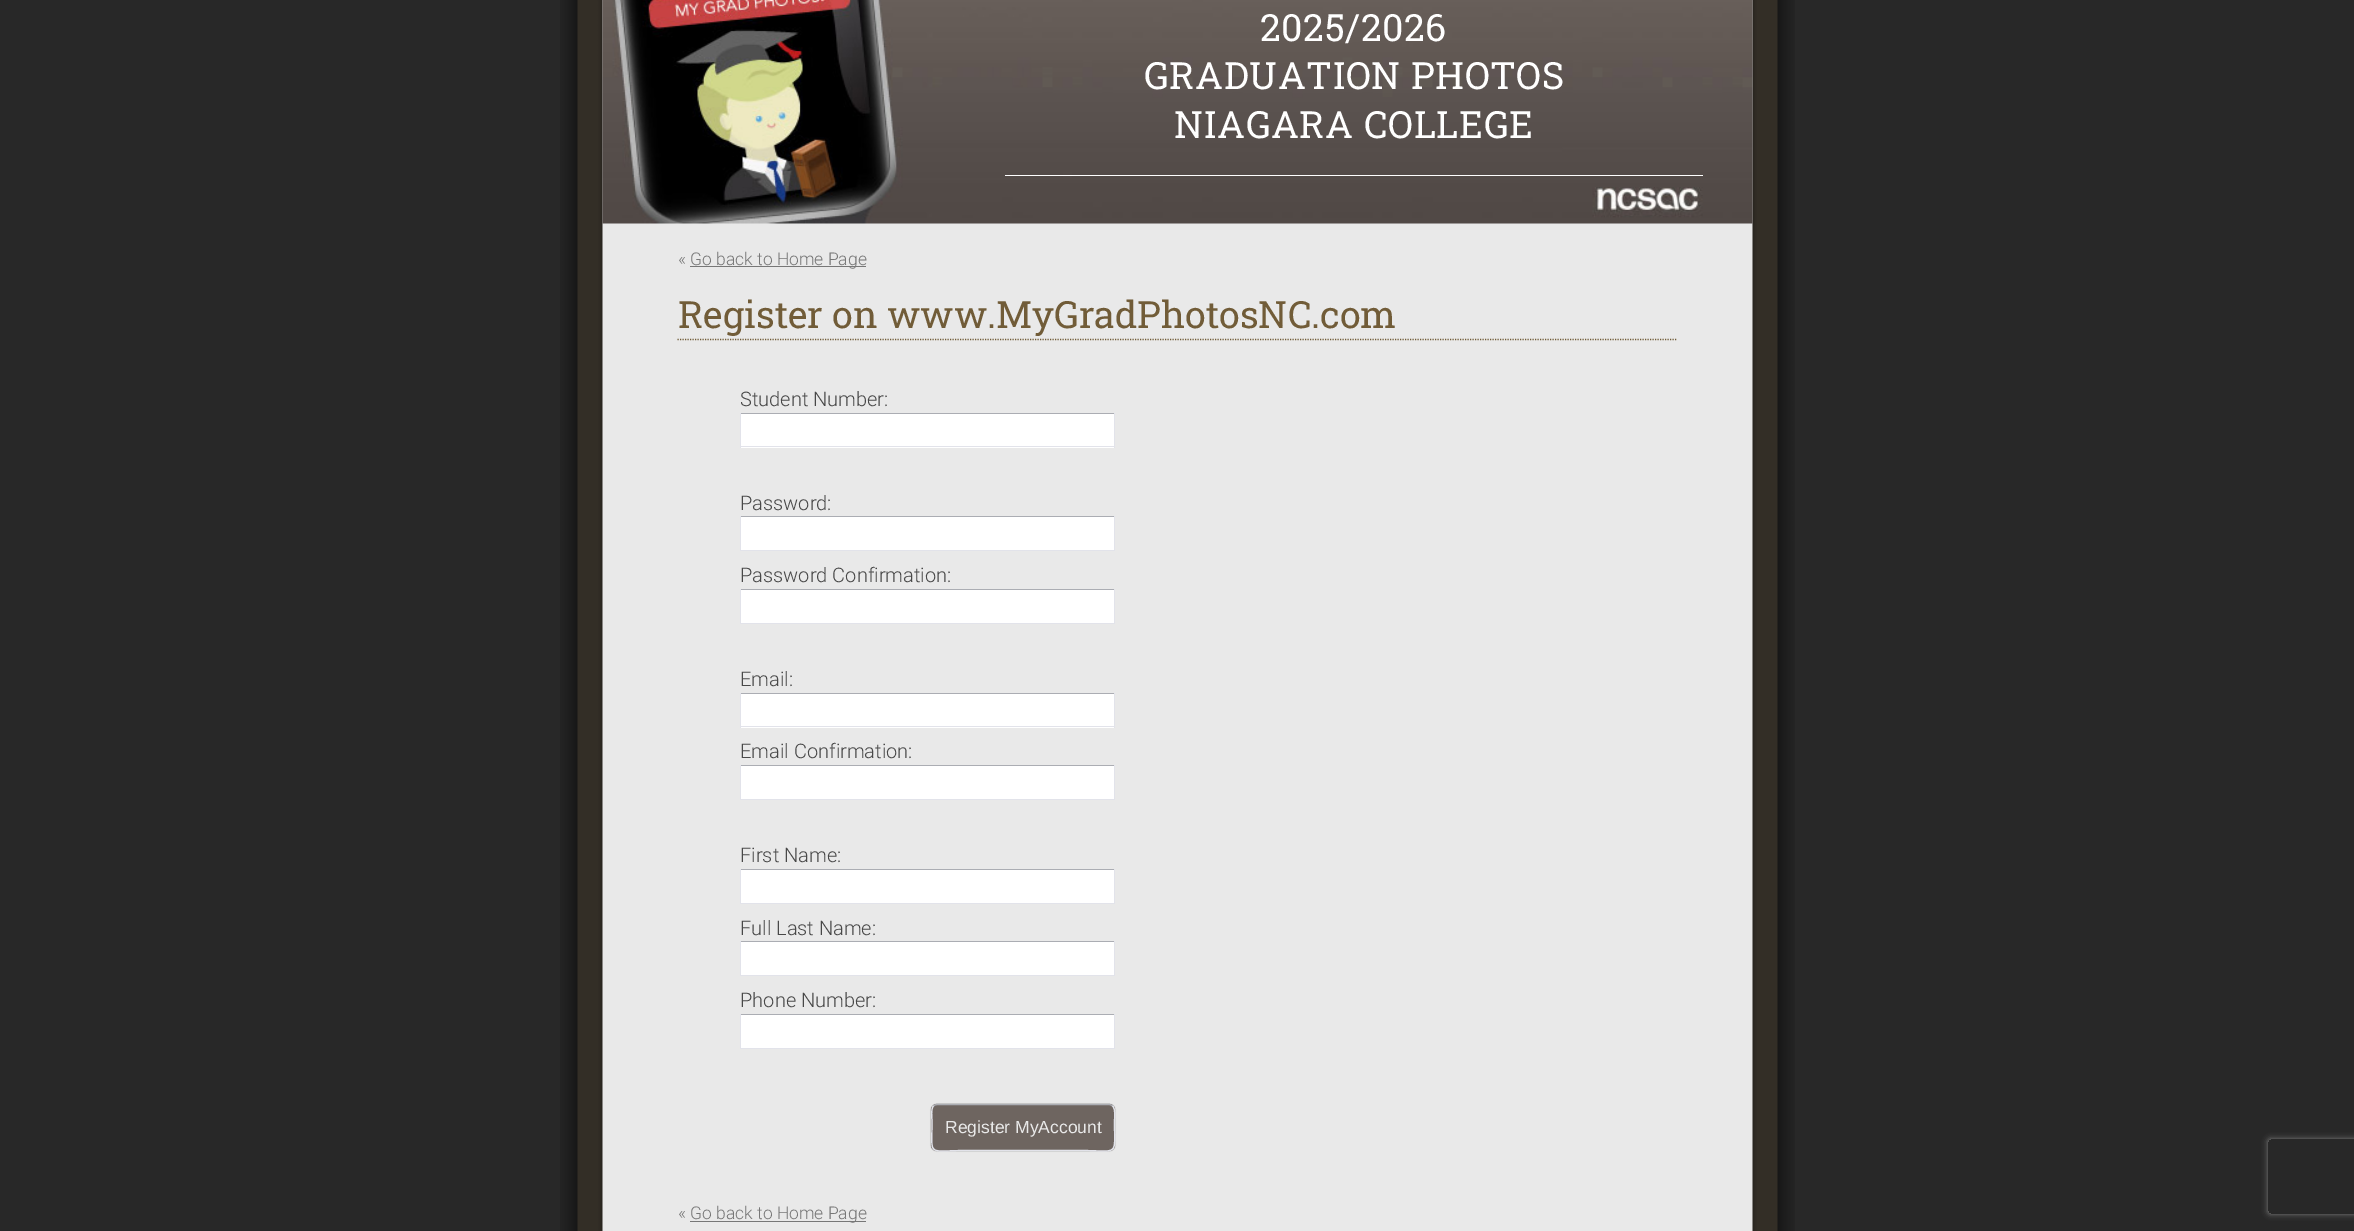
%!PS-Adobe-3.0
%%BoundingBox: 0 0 2354 1231
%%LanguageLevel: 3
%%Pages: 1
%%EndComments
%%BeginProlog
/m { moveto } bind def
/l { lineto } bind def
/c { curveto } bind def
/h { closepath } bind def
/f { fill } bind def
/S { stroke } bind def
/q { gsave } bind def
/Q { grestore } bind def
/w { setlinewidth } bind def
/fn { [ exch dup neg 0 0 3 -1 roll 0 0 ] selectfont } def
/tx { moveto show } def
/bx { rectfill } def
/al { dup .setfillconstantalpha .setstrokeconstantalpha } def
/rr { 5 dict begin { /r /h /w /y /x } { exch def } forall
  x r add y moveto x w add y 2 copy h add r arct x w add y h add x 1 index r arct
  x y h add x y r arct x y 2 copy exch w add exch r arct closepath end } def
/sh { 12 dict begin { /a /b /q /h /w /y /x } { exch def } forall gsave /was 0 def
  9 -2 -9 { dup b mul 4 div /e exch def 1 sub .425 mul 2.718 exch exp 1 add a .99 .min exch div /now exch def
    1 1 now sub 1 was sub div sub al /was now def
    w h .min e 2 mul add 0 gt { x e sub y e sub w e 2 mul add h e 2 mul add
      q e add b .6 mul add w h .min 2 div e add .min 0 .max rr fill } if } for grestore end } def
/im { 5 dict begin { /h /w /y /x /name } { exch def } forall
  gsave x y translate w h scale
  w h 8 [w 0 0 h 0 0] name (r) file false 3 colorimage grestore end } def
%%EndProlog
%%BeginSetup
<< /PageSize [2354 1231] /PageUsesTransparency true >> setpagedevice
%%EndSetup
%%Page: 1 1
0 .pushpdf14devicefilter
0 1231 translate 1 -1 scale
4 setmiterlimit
0.157 setgray
0 0 2354 1231 bx
(image0.raw) 560 0 1235 1231 im
(image1.raw) 602 0 1151 224 im
1 setgray
1005 175 698 1 bx
/RobotoSlab-Regular 37.5 fn
1260 41 m 0.6 0 (2025/2026) ashow
1144 89 m 0.6 0 (GRADUATION PHOTOS) ashow
1174 138 m 0.6 0 (NIAGARA COLLEGE) ashow
/Roboto-Light 17.5 fn
0.467 setgray
(«) 678 265 tx
690 266 176 1 bx
(Go back to Home Page) 690 265 tx
0.443 0.361 0.22 setrgbcolor
1.2 w
[1.25 1.25] 0 setdash
677.5 339.5 m 1677.5 339.5 l S
/RobotoSlab-Regular 37.5 fn
(Register on www.MyGradPhotosNC.com) 678 328 tx
/Roboto-Light 20 fn
0.282 setgray
(Student Number:) 740 406 tx
1 setgray
741 414 373 34 bx
0.671 0.678 0.702 setrgbcolor
740 413 375 1 bx
0.886 0.89 0.918 setrgbcolor
1114 413 1 35 bx
740 446 375 1 bx
740 413 1 35 bx
0.282 setgray
(Password:) 740 510 tx
1 setgray
741 517 373 33 bx
0.671 0.678 0.702 setrgbcolor
740 516 375 1 bx
0.886 0.89 0.918 setrgbcolor
1114 516 1 35 bx
740 550 375 1 bx
740 516 1 35 bx
0.282 setgray
(Password Confirmation:) 740 582 tx
1 setgray
741 590 373 33 bx
0.671 0.678 0.702 setrgbcolor
740 589 375 1 bx
0.886 0.89 0.918 setrgbcolor
1114 589 1 35 bx
740 623 375 1 bx
740 589 1 35 bx
0.282 setgray
(Email:) 740 686 tx
1 setgray
741 694 373 34 bx
0.671 0.678 0.702 setrgbcolor
740 693 375 1 bx
0.886 0.89 0.918 setrgbcolor
1114 693 1 35 bx
740 726 375 1 bx
740 693 1 35 bx
0.282 setgray
(Email Confirmation:) 740 758 tx
1 setgray
741 766 373 33 bx
0.671 0.678 0.702 setrgbcolor
740 765 375 1 bx
0.886 0.89 0.918 setrgbcolor
1114 765 1 35 bx
740 799 375 1 bx
740 765 1 35 bx
0.282 setgray
(First Name:) 740 862 tx
1 setgray
741 870 373 33 bx
0.671 0.678 0.702 setrgbcolor
740 869 375 1 bx
0.886 0.89 0.918 setrgbcolor
1114 869 1 35 bx
740 903 375 1 bx
740 869 1 35 bx
0.282 setgray
(Full Last Name:) 740 935 tx
1 setgray
741 942 373 33 bx
0.671 0.678 0.702 setrgbcolor
740 941 375 1 bx
0.886 0.89 0.918 setrgbcolor
1114 941 1 35 bx
740 975 375 1 bx
740 941 1 35 bx
0.282 setgray
(Phone Number:) 740 1007 tx
1 setgray
741 1015 373 33 bx
0.671 0.678 0.702 setrgbcolor
740 1014 375 1 bx
0.886 0.89 0.918 setrgbcolor
1114 1014 1 35 bx
740 1048 375 1 bx
740 1014 1 35 bx
0.518 0.506 0.482 setrgbcolor
931 1104 184 47 6 0.5 1 sh
0.431 0.396 0.376 setrgbcolor
931 1104 184 47 6 rr f
0.671 0.678 0.702 setrgbcolor
[] 0 setdash
933.5 1106 m 934.5 1105 936 1104.5 937.5 1104.5 c 1109 1104.5 l 1110 1104.5 1111.5 1105 1112.5 1106 c S
0.886 0.89 0.918 setrgbcolor
1112.5 1106 m 1116 1109 1114.5 1118 1114.5 1121.5 c 1114.5 1157.5 1119.5 1150.5 1080 1150.5 c 966 1150.5 l 926.5 1150.5 932 1157.5 932 1121.5 c 932 1118 930.5 1109 933.5 1106 c S
/LiberationSans-Regular 17.5 fn
0.914 setgray
(Register MyAccount) 945 1133 tx
q
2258 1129 m 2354 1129 l 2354 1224 l 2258 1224 l h 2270.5 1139 m 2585.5 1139 l 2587 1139 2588 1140 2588 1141.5 c 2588 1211.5 l 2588 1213 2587 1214 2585.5 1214 c 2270.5 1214 l 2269 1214 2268 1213 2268 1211.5 c 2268 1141.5 l 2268 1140 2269 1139 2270.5 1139 c h eoclip newpath
0.502 setgray
2268 1139 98 75 2.5 3 1 sh
Q
/Roboto-Light 17.5 fn
0.467 setgray
(«) 678 1219 tx
690 1221 176 1 bx
(Go back to Home Page) 690 1219 tx
.poppdf14devicefilter showpage
%%EOF
